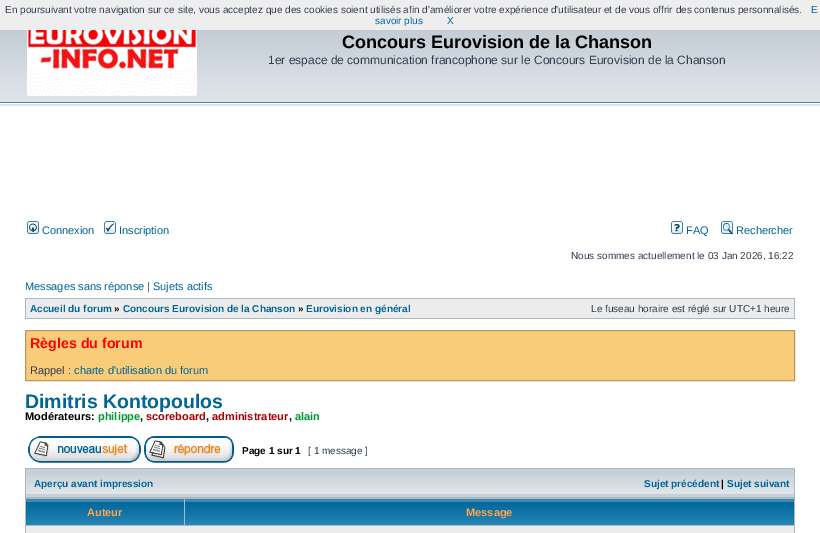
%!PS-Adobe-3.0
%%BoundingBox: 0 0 820 533
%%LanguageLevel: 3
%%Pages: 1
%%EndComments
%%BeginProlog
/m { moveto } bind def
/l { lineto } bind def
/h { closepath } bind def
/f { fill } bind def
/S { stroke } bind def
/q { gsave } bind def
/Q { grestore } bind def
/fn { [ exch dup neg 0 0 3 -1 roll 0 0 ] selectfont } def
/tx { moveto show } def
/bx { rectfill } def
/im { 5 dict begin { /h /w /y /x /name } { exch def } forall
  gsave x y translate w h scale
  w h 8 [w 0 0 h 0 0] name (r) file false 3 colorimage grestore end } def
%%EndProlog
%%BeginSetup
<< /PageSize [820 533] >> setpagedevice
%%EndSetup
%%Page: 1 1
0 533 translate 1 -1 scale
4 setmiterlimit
1 setgray
0 0 820 533 bx
0.933 setgray
0 0 820 30 bx
/LiberationSans-Regular 10 fn
0.196 0.239 0.31 setrgbcolor
(En poursuivant votre navigation sur ce site, vous acceptez que des cookies soient utilisés afin d'améliorer votre expérience d'utilisateur et de vous offrir des contenus personnalisés.) 5 13 tx
0 0.396 0.592 setrgbcolor
(E) 811 13 tx
(savoir plus) 375 24 tx
(X) 447 24 tx
(image0.raw) 0 30 820 83 im
(image1.raw) 27 30 170 66 im
/LiberationSans-Bold 18 fn
0 setgray
(Concours Eurovision de la Chanson) 342 48 tx
/LiberationSans-Regular 12 fn
0.196 0.239 0.31 setrgbcolor
(1er espace de communication francophone sur le Concours Eurovision de la Chanson) 268 64 tx
(image2.raw) 27 221 12 13 im
/LiberationSans-Regular 11 fn
0 0.396 0.592 setrgbcolor
(Connexion) 42 234 tx
(image3.raw) 104 221 12 13 im
(Inscription) 119 234 tx
(image4.raw) 671 221 12 13 im
(FAQ) 686 234 tx
(image5.raw) 721 221 12 13 im
(Rechercher) 736 234 tx
/LiberationSans-Regular 10 fn
0.196 0.239 0.31 setrgbcolor
(Nous sommes actuellement le 03 Jan 2026, 16:22) 571 259 tx
/LiberationSans-Regular 11 fn
0 0.396 0.592 setrgbcolor
(Messages sans réponse) 25 290 tx
0.196 0.239 0.31 setrgbcolor
(|) 147 290 tx
0 0.396 0.592 setrgbcolor
(Sujets actifs) 153 290 tx
0.663 0.722 0.761 setrgbcolor
25 298 770 21 bx
0.925 setgray
26 299 768 19 bx
/LiberationSans-Bold 10 fn
0 0.396 0.592 setrgbcolor
(Accueil du forum) 30 312 tx
0 setgray
(») 114 312 tx
0 0.396 0.592 setrgbcolor
(Concours Eurovision de la Chanson) 123 312 tx
0 setgray
(») 298 312 tx
0 0.396 0.592 setrgbcolor
(Eurovision en général) 306 312 tx
/LiberationSans-Regular 10 fn
0.196 0.239 0.31 setrgbcolor
(Le fuseau horaire est réglé sur UTC+1 heure) 591 312 tx
0.976 0.8 0.475 setrgbcolor
25.5 330.5 m 794.5 330.5 l 794.5 380.5 l 25.5 380.5 l h q f Q
0.733 0.596 0.376 setrgbcolor
S
/LiberationSans-Bold 14.25 fn
1 0 0 setrgbcolor
(Règles du forum) 30 348 tx
/LiberationSans-Regular 11 fn
0.196 0.239 0.31 setrgbcolor
(Rappel :) 30 374 tx
0 0.396 0.592 setrgbcolor
(charte d'utilisation du forum) 74 374 tx
/LiberationSans-Bold 19.5 fn
(Dimitris Kontopoulos) 25 408 tx
/LiberationSans-Bold 11 fn
0 setgray
(Modérateurs:) 25 420 tx
0 0.6 0.2 setrgbcolor
(philippe) 98 420 tx
0 setgray
(,) 140 420 tx
0.667 0 0 setrgbcolor
(scoreboard) 146 420 tx
0 setgray
(,) 206 420 tx
0.667 0 0 setrgbcolor
(administrateur) 212 420 tx
0 setgray
(,) 289 420 tx
0 0.6 0.2 setrgbcolor
(alain) 295 420 tx
(image6.raw) 28 436 113 27 im
(image7.raw) 144 436 90 27 im
/LiberationSans-Bold 10 fn
0 setgray
(Page 1 sur 1) 242 454 tx
/LiberationSans-Regular 10 fn
0.196 0.239 0.31 setrgbcolor
([ 1 message ]) 308 454 tx
0.663 0.722 0.761 setrgbcolor
25 468 770 65 bx
0.78 0.816 0.843 setrgbcolor
26 469 768 28 bx
(image8.raw) 26 475 768 19 im
/LiberationSans-Bold 10 fn
0 0.396 0.592 setrgbcolor
(Aperçu avant impression) 34 487 tx
(Sujet précédent) 644 487 tx
0 setgray
(|) 721 487 tx
0 0.396 0.592 setrgbcolor
(Sujet suivant) 727 487 tx
(image9.raw) 26 499 158 26 im
/LiberationSans-Bold 11 fn
1 0.639 0.31 setrgbcolor
(Auteur) 87 516 tx
(image10.raw) 185 499 609 26 im
(Message) 466 516 tx
0.925 setgray
26 526 768 7 bx
showpage
%%EOF
